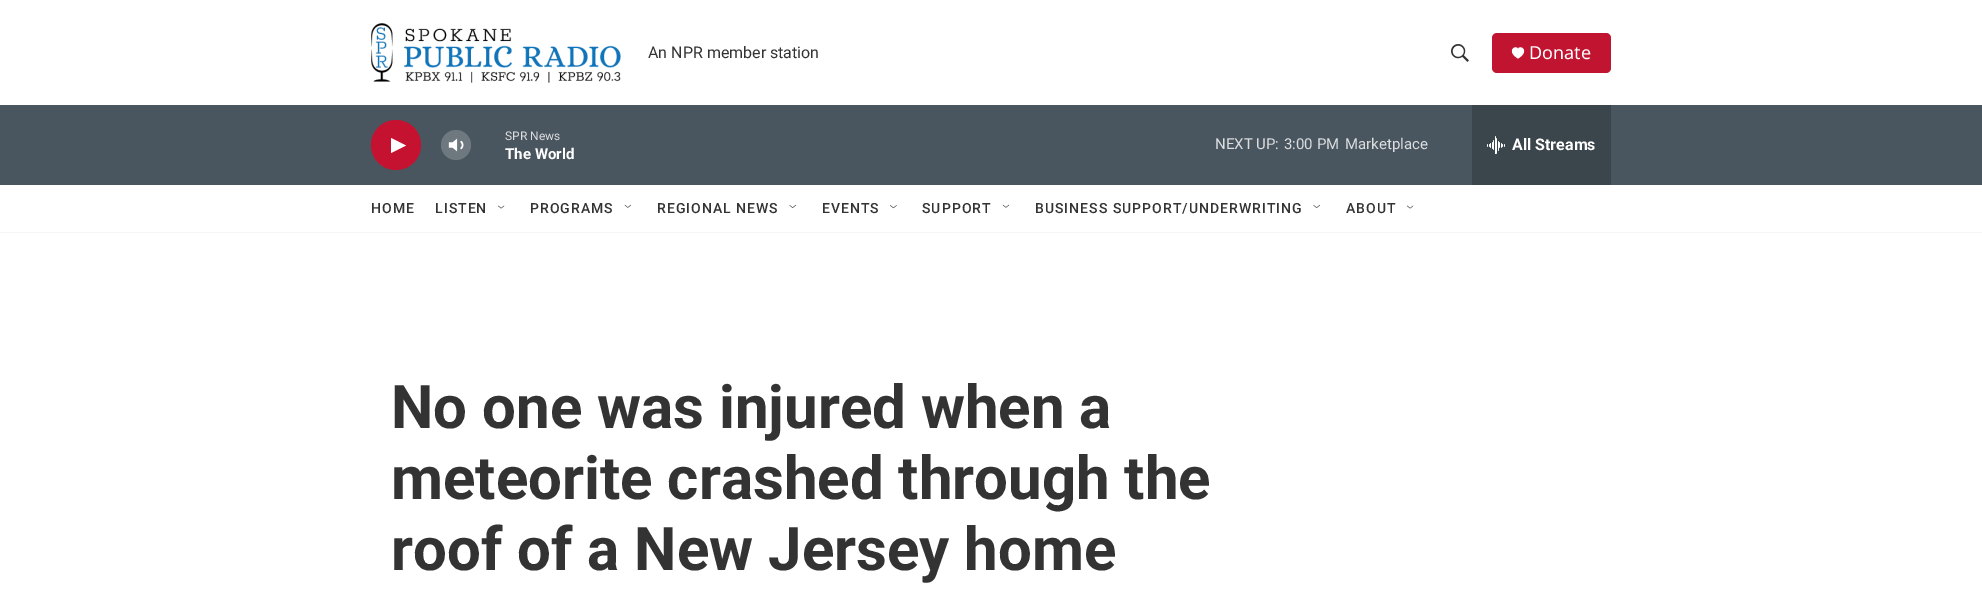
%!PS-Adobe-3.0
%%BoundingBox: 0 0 1982 612
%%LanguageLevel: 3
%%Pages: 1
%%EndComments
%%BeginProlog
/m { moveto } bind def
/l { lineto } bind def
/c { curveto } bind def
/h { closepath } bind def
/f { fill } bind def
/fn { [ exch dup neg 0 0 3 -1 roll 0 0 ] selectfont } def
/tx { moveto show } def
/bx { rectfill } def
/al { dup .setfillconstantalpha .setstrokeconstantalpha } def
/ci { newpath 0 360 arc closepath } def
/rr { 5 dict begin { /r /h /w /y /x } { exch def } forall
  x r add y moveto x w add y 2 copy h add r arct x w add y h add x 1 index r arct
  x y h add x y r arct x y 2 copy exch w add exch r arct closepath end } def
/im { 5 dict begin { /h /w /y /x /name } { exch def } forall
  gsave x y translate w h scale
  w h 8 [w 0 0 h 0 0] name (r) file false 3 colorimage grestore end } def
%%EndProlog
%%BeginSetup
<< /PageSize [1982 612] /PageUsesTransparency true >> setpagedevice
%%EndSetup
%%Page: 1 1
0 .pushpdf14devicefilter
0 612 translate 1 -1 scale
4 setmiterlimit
1 setgray
0 0 1982 612 bx
0.961 setgray
0 232 1982 1 bx
(image0.raw) 371 23 250 60 im
/Roboto-Regular 16 fn
0.2 setgray
(An NPR member station) 648 58 tx
(image1.raw) 1451 44 18 18 im
0.757 0.078 0.192 setrgbcolor
1492 33 119 40 5 rr f
1 setgray
1518 49 m 1516 44 1505.5 51 1518 58.5 c 1530.5 51 1520 44 1518 49 c h f
/NotoSans-Regular 18 fn
(Donate) 1529 59 tx
0.29 0.337 0.373 setrgbcolor
0 105 1982 80 bx
0.769 0.071 0.188 setrgbcolor
396 145 25 ci f
1 setgray
391 138 m 406 145.5 l 391 153 l h f
(image2.raw) 448 138 16 14 im
0.2 al
456 145 15 ci f
/Roboto-Regular 12 fn
1 al
0.859 0.867 0.875 setrgbcolor
(SPR News) 505 140 tx
/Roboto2-Bold 15 fn
1 setgray
(The World) 505 159 tx
/Roboto-Regular 15 fn
0.859 0.867 0.875 setrgbcolor
(NEXT UP:) 1215 149 tx
(3:00 PM) 1284 149 tx
(Marketplace) 1345 149 tx
0.231 0.271 0.298 setrgbcolor
1472 105 139 80 bx
(image3.raw) 1487 136 18 18 im
/Roboto2-Bold 16 fn
1 setgray
(All Streams) 1512 150 tx
/Roboto-Medium 14 fn
0.2 setgray
371 213 m 1 0 (HOME) ashow
435 213 m 1 0 (LISTEN) ashow
(image4.raw) 497 205 8 4 im
530 213 m 1 0 (PROGRAMS) ashow
(image5.raw) 624 204 7 4 im
657 213 m 1 0 (REGIONAL NEWS) ashow
(image6.raw) 789 204 7 4 im
822 213 m 1 0 (EVENTS) ashow
(image7.raw) 890 205 7 4 im
922 213 m 1 0 (SUPPORT) ashow
(image8.raw) 1002 204 8 4 im
1035 213 m 1 0 (BUSINESS SUPPORT/UNDERWRITING) ashow
(image6.raw) 1313 204 7 4 im
1346 213 m 1 0 (ABOUT) ashow
(image4.raw) 1406 205 8 4 im
/Roboto-Bold 60 fn
(No one was injured when a) 391 428 tx
(meteorite crashed through the) 391 499 tx
(roof of a New Jersey home) 391 570 tx
.poppdf14devicefilter showpage
%%EOF
